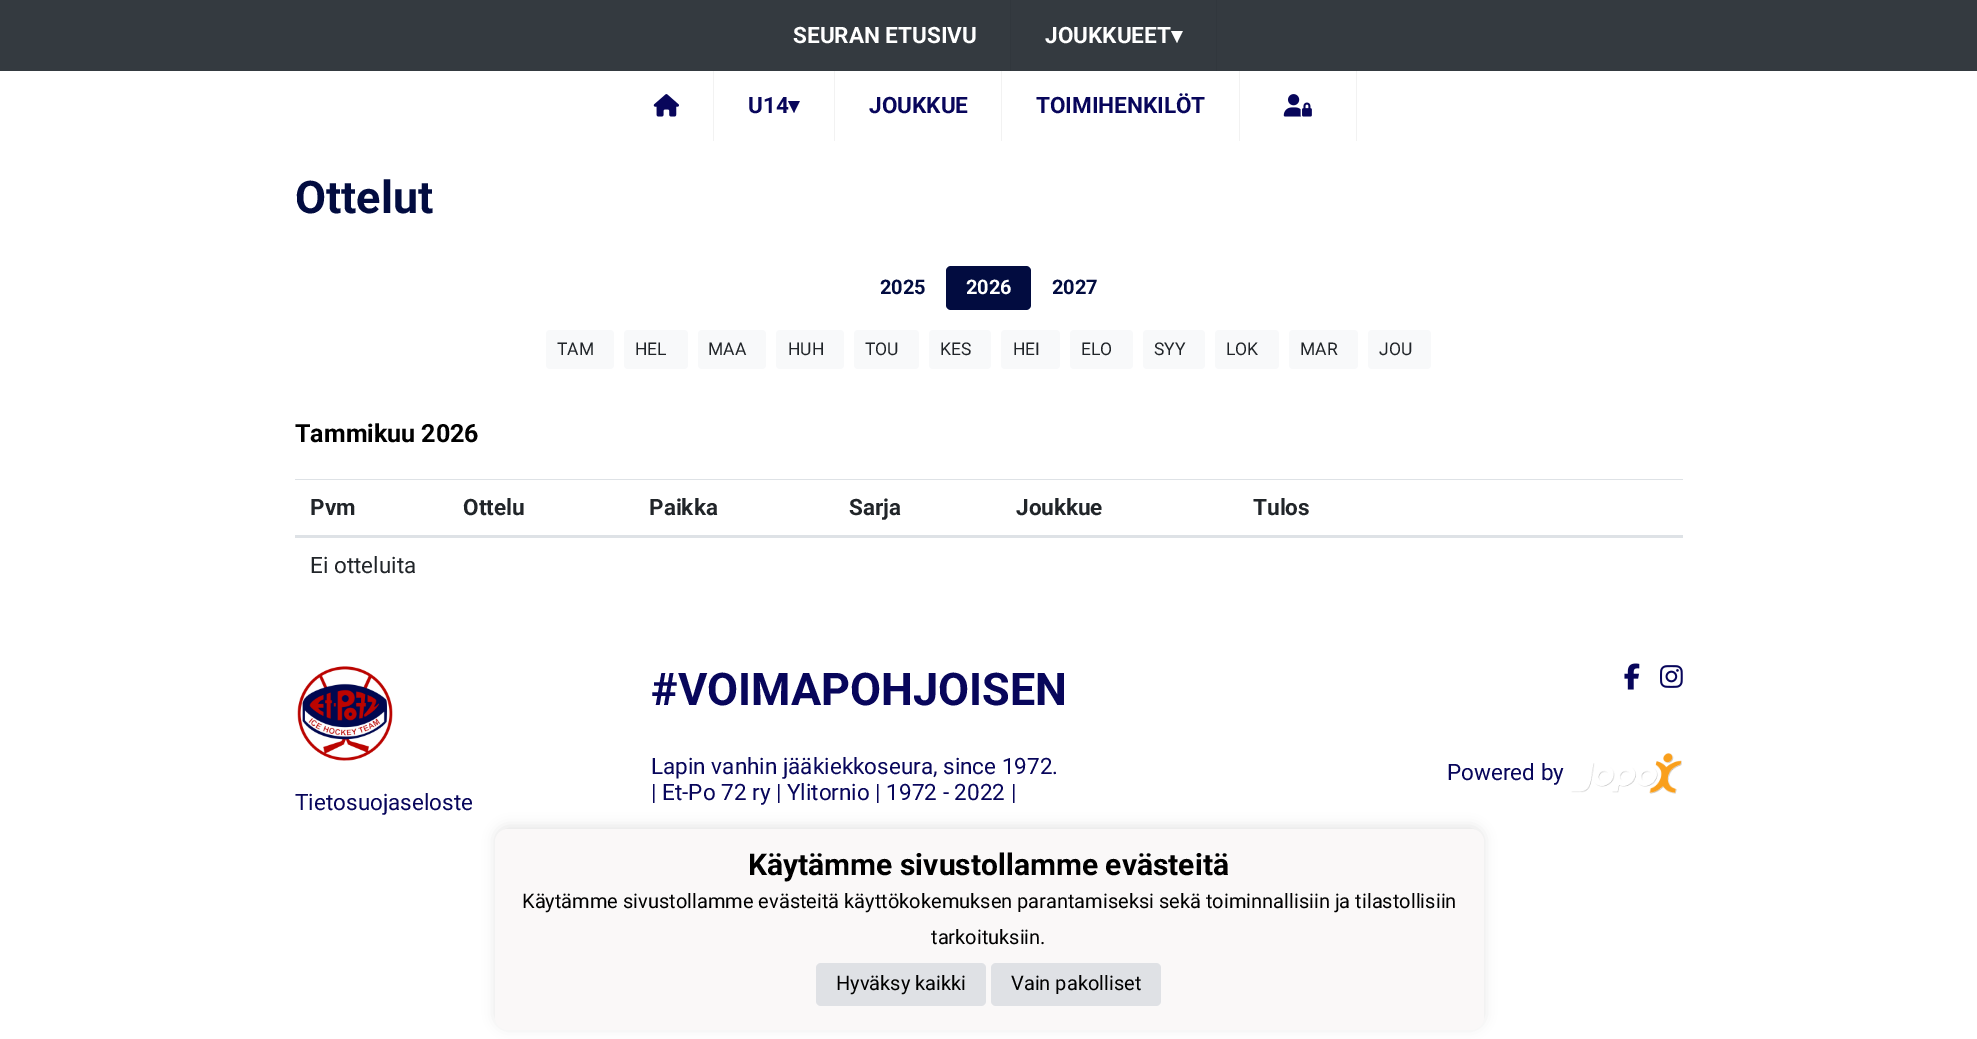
%!PS-Adobe-3.0
%%BoundingBox: 0 0 1977 1039
%%LanguageLevel: 3
%%Pages: 1
%%EndComments
%%BeginProlog
/f { fill } bind def
/fn { [ exch dup neg 0 0 3 -1 roll 0 0 ] selectfont } def
/tx { moveto show } def
/bx { rectfill } def
/al { dup .setfillconstantalpha .setstrokeconstantalpha } def
/rr { 5 dict begin { /r /h /w /y /x } { exch def } forall
  x r add y moveto x w add y 2 copy h add r arct x w add y h add x 1 index r arct
  x y h add x y r arct x y 2 copy exch w add exch r arct closepath end } def
/sh { 12 dict begin { /a /b /q /h /w /y /x } { exch def } forall gsave /was 0 def
  9 -2 -9 { dup b mul 4 div /e exch def 1 sub .425 mul 2.718 exch exp 1 add a .99 .min exch div /now exch def
    1 1 now sub 1 was sub div sub al /was now def
    w h .min e 2 mul add 0 gt { x e sub y e sub w e 2 mul add h e 2 mul add
      q e add b .6 mul add w h .min 2 div e add .min 0 .max rr fill } if } for grestore end } def
/im { 5 dict begin { /h /w /y /x /name } { exch def } forall
  gsave x y translate w h scale
  w h 8 [w 0 0 h 0 0] name (r) file false 3 colorimage grestore end } def
%%EndProlog
%%BeginSetup
<< /PageSize [1977 1039] /PageUsesTransparency true >> setpagedevice
%%EndSetup
%%Page: 1 1
0 .pushpdf14devicefilter
0 1039 translate 1 -1 scale
4 setmiterlimit
1 setgray
0 0 1977 1039 bx
0.204 0.227 0.251 setrgbcolor
0 0 1977 71 bx
0.192 0.216 0.239 setrgbcolor
1010 0 1 71 bx
/Roboto-Bold 22.5 fn
1 setgray
(SEURAN ETUSIVU) 793 43 tx
0.192 0.216 0.239 setrgbcolor
1216 0 1 71 bx
1 setgray
(JOUKKUEET) 1045 43 tx
/DejaVuSans-Bold 22.5 fn
(▾) 1171 43 tx
0.949 setgray
713 71 1 70 bx
(image0.raw) 653 94 26 23 im
834 71 1 70 bx
/Roboto-Bold 22.5 fn
0.031 0.024 0.357 setrgbcolor
(U14) 748 113 tx
/DejaVuSans-Bold 22.5 fn
(▾) 788 113 tx
0.949 setgray
1001 71 1 70 bx
/Roboto-Bold 22.5 fn
0.031 0.024 0.357 setrgbcolor
(JOUKKUE) 869 113 tx
0.949 setgray
1239 71 1 70 bx
0.031 0.024 0.357 setrgbcolor
(TOIMIHENKILÖT) 1036 113 tx
0.949 setgray
1356 71 1 70 bx
(image1.raw) 1283 94 29 23 im
/Roboto-Bold 45 fn
0.008 0.047 0.251 setrgbcolor
(Ottelut) 295 213 tx
/Roboto-Bold 20 fn
(2025) 880 294 tx
946 266 85 44 5 rr f
1 setgray
(2026) 966 294 tx
0.008 0.047 0.251 setrgbcolor
(2027) 1052 294 tx
0.973 0.976 0.98 setrgbcolor
546 330 68 39 4 rr f
/Roboto-Regular 17.5 fn
0.129 0.145 0.161 setrgbcolor
(TAM) 557 355 tx
0.973 0.976 0.98 setrgbcolor
624 330 64 39 4 rr f
0.129 0.145 0.161 setrgbcolor
(HEL) 635 355 tx
0.973 0.976 0.98 setrgbcolor
698 330 68 39 4 rr f
0.129 0.145 0.161 setrgbcolor
(MAA) 708 355 tx
0.973 0.976 0.98 setrgbcolor
776 330 68 39 4 rr f
0.129 0.145 0.161 setrgbcolor
(HUH) 788 355 tx
0.973 0.976 0.98 setrgbcolor
854 330 65 39 4 rr f
0.129 0.145 0.161 setrgbcolor
(TOU) 865 355 tx
0.973 0.976 0.98 setrgbcolor
929 330 62 39 4 rr f
0.129 0.145 0.161 setrgbcolor
(KES) 940 355 tx
0.973 0.976 0.98 setrgbcolor
1001 330 59 39 4 rr f
0.129 0.145 0.161 setrgbcolor
(HEI) 1013 355 tx
0.973 0.976 0.98 setrgbcolor
1070 330 63 39 4 rr f
0.129 0.145 0.161 setrgbcolor
(ELO) 1081 355 tx
0.973 0.976 0.98 setrgbcolor
1143 330 62 39 4 rr f
0.129 0.145 0.161 setrgbcolor
(SYY) 1154 355 tx
0.973 0.976 0.98 setrgbcolor
1215 330 64 39 4 rr f
0.129 0.145 0.161 setrgbcolor
(LOK) 1226 355 tx
0.973 0.976 0.98 setrgbcolor
1289 330 69 39 4 rr f
0.129 0.145 0.161 setrgbcolor
(MAR) 1300 355 tx
0.973 0.976 0.98 setrgbcolor
1368 330 63 39 4 rr f
0.129 0.145 0.161 setrgbcolor
(JOU) 1379 355 tx
/Roboto-Bold 25 fn
0 setgray
(Tammikuu 2026) 295 442 tx
/Roboto-Bold 22.5 fn
0.129 0.145 0.161 setrgbcolor
(Pvm) 310 515 tx
(Ottelu) 463 515 tx
(Paikka) 649 515 tx
(Sarja) 849 515 tx
(Joukkue) 1016 515 tx
0.871 0.886 0.902 setrgbcolor
295 479 1388 1 bx
295 535 1388 3 bx
0.129 0.145 0.161 setrgbcolor
(Tulos) 1253 515 tx
/Roboto-Regular 22.5 fn
(Ei otteluita) 310 573 tx
/Roboto-Bold 45 fn
0.031 0.024 0.357 setrgbcolor
(#VOIMAPOHJOISEN) 651 705 tx
/Roboto-Regular 22.5 fn
(Lapin vanhin jääkiekkoseura, since 1972.) 651 774 tx
(| Et-Po 72 ry | Ylitornio | 1972 - 2022 |) 651 800 tx
(image2.raw) 1624 663 16 27 im
(image3.raw) 1660 665 23 23 im
(Powered by) 1447 780 tx
(image4.raw) 1571 753 111 41 im
(image5.raw) 297 666 96 95 im
(Tietosuojaseloste) 295 810 tx
0 setgray
495 826 989 202 13 6 0.1 sh
0.98 0.973 0.973 setrgbcolor
495 829 989 201 13 rr f
/Roboto-Bold 30 fn
0 setgray
(Käytämme sivustollamme evästeitä) 748 875 tx
/Roboto-Regular 20 fn
(Käytämme sivustollamme evästeitä käyttökokemuksen parantamiseksi sekä toiminnallisiin ja tilastollisiin) 522 908 tx
(tarkoituksiin.) 931 944 tx
0.875 0.882 0.898 setrgbcolor
816 963 170 43 5 rr f
0 setgray
(Hyväksy kaikki) 836 990 tx
0.875 0.882 0.898 setrgbcolor
991 963 170 43 5 rr f
0 setgray
(Vain pakolliset) 1011 990 tx
.poppdf14devicefilter showpage
%%EOF
